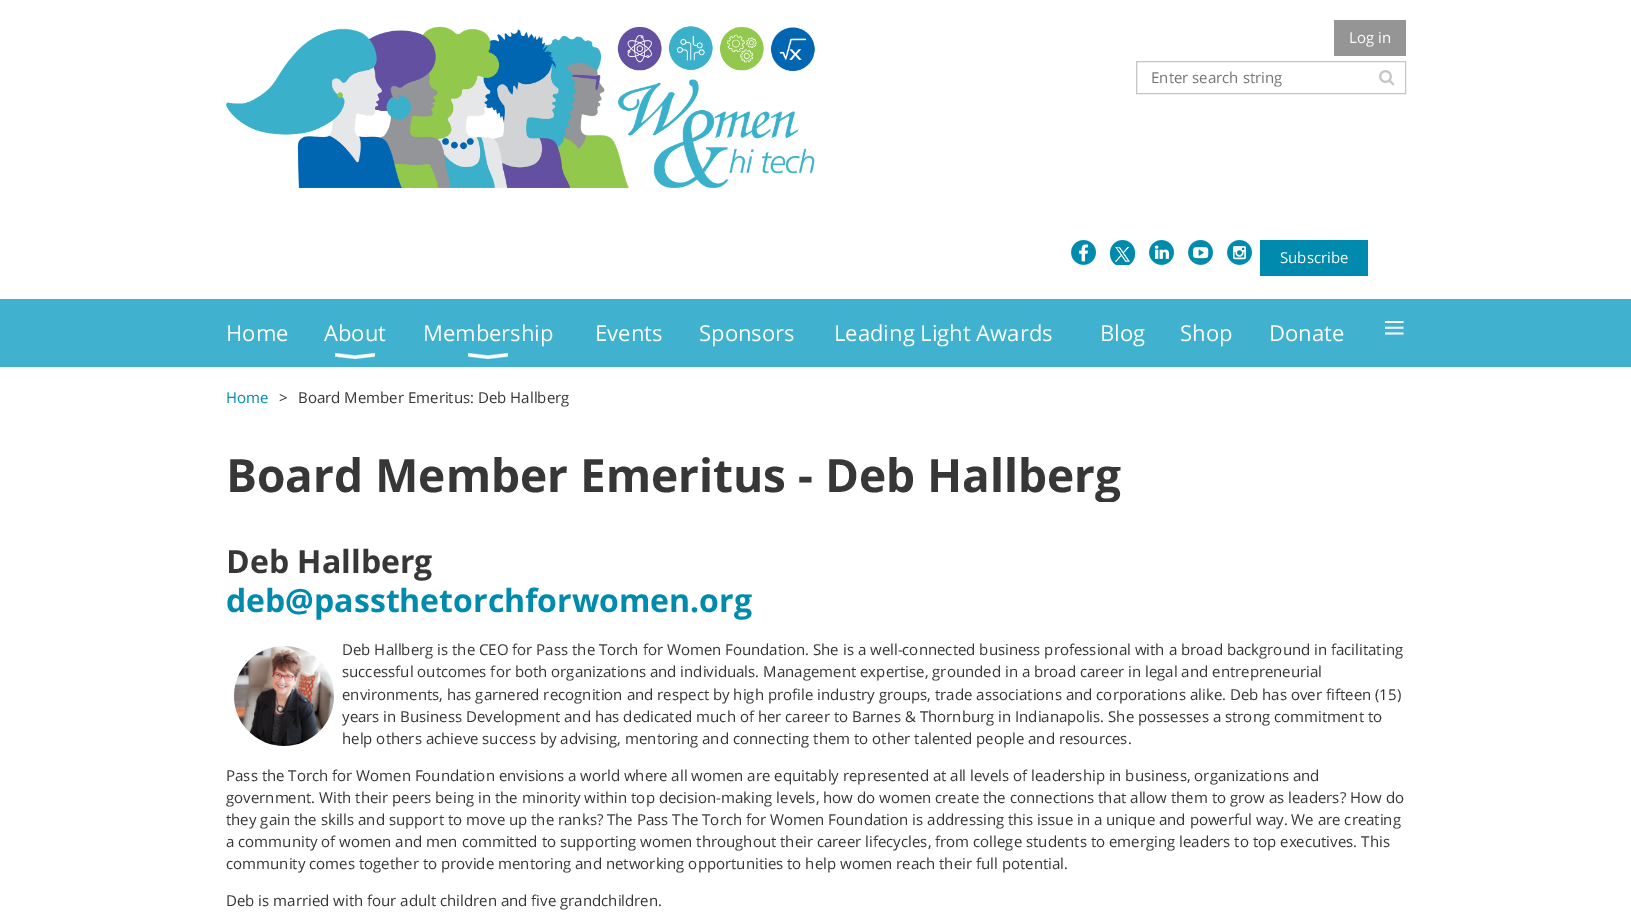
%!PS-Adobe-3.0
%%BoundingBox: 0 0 1631 923
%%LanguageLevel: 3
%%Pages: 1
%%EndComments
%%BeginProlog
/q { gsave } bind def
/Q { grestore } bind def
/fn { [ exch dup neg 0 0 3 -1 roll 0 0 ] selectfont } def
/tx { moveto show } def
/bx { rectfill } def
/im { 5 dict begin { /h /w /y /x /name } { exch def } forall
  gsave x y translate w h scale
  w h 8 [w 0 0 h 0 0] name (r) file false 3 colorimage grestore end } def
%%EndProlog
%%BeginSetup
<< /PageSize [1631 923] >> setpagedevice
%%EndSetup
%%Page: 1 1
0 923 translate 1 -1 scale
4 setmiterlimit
1 setgray
0 0 1631 923 bx
(image0.raw) 226 26 589 162 im
0.584 setgray
1334 20 72 36 bx
/OpenSans-Regular 15 fn
1 setgray
(Log in) 1349 43 tx
0.776 setgray
1136.5 61.5 269 32 rectstroke
0.459 setgray
(Enter search string) 1151 83 tx
(image1.raw) 1379 70 16 16 im
(image2.raw) 1071 240 25 25 im
(image3.raw) 1110 240 25 25 im
(image4.raw) 1149 240 25 25 im
(image5.raw) 1188 240 25 25 im
(image6.raw) 1227 240 25 25 im
0 0.545 0.682 setrgbcolor
1260 240 108 36 bx
1 setgray
(Subscribe) 1280 263 tx
0.251 0.698 0.812 setrgbcolor
0 299 1631 68 bx
/OpenSans-Regular 22 fn
1 setgray
(Home) 226 341 tx
(About) 324 341 tx
(image7.raw) 335 353 40 6 im
(Membership) 423 341 tx
(image7.raw) 468 353 40 6 im
(Events) 595 341 tx
(Sponsors) 699 341 tx
(Leading Light Awards) 834 341 tx
(Blog) 1100 341 tx
(Shop) 1180 341 tx
(Donate) 1269 341 tx
/LiberationSerif-Regular 40 fn
(≡) 1383 341 tx
/OpenSans-Regular 15 fn
0 0.545 0.682 setrgbcolor
(Home) 226 403 tx
0.216 setgray
(>) 279 403 tx
(Board Member Emeritus: Deb Hallberg) 298 403 tx
q
226 447 1180 55 rectclip
/OpenSans-Bold 46 fn
(Board Member Emeritus - Deb Hallberg) 226 492 tx
Q
/OpenSans-Bold 32 fn
(Deb Hallberg) 226 573 tx
0 0.545 0.682 setrgbcolor
(deb@passthetorchforwomen.org) 226 612 tx
(image8.raw) 234 646 100 100 im
/OpenSans-Regular 15 fn
0.216 setgray
(Deb Hallberg is the CEO for Pass the Torch for Women Foundation. She is a well-connected business professional with a broad background in facilitating) 342 655 tx
(successful outcomes for both organizations and individuals. Management expertise, grounded in a broad career in legal and entrepreneurial) 342 677 tx
(environments, has garnered recognition and respect by high profile industry groups, trade associations and corporations alike. Deb has over fifteen \(15\)) 342 700 tx
(years in Business Development and has dedicated much of her career to Barnes & Thornburg in Indianapolis. She possesses a strong commitment to) 342 722 tx
(help others achieve success by advising, mentoring and connecting them to other talented people and resources.) 342 744 tx
(Pass the Torch for Women Foundation envisions a world where all women are equitably represented at all levels of leadership in business, organizations and) 226 781 tx
(government. With their peers being in the minority within top decision-making levels, how do women create the connections that allow them to grow as leaders? How do) 226 803 tx
(they gain the skills and support to move up the ranks? The Pass The Torch for Women Foundation is addressing this issue in a unique and powerful way. We are creating) 226 825 tx
(a community of women and men committed to supporting women throughout their career lifecycles, from college students to emerging leaders to top executives. This) 226 847 tx
(community comes together to provide mentoring and networking opportunities to help women reach their full potential.) 226 869 tx
(Deb is married with four adult children and five grandchildren.) 226 906 tx
showpage
%%EOF
